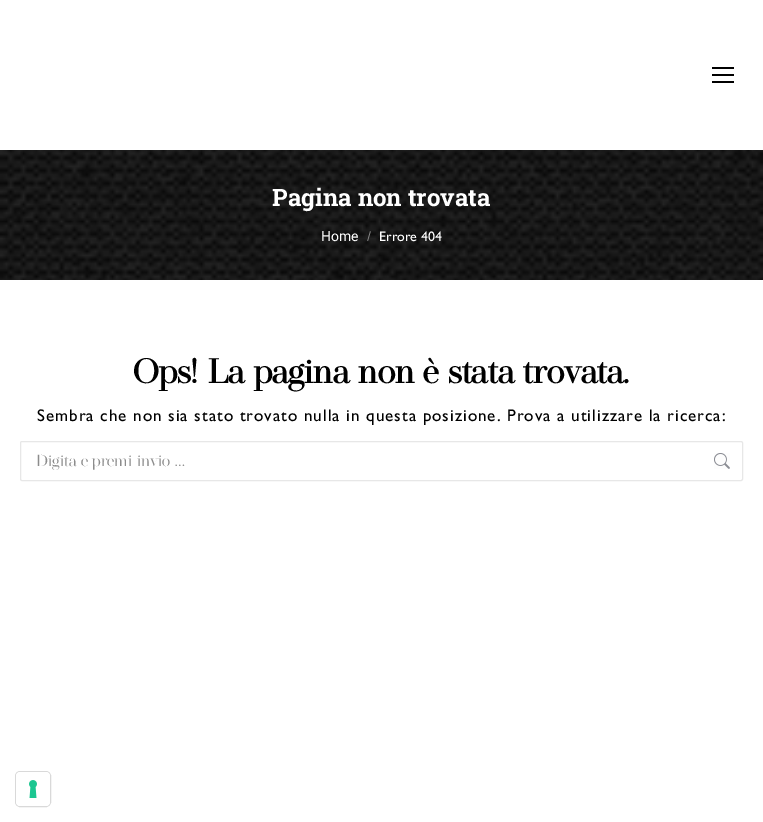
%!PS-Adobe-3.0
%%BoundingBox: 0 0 763 822
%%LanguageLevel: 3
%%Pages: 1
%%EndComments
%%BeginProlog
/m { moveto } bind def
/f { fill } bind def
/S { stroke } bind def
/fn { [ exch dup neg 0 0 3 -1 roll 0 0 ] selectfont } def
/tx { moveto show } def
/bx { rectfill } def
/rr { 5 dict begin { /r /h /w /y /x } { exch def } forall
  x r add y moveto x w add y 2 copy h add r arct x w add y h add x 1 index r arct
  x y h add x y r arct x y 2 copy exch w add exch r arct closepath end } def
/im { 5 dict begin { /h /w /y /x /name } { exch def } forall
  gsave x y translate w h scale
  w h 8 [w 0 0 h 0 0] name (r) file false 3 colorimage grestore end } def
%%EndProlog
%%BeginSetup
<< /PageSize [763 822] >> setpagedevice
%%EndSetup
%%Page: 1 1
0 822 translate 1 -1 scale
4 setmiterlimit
1 setgray
0 0 763 822 bx
0 setgray
712 67 22 2 bx
712 74 22 2 bx
712 81 22 2 bx
(image0.raw) 0 150 763 130 im
/RobotoSlab-Bold 24 fn
1 setgray
(Pagina non trovata) 272 206 tx
/Roboto-Regular 14 fn
(Home) 321 241 tx
/GillSans-Regular 14 fn
0.549 setgray
(/) 367 241 tx
1 setgray
(Errore 404) 379 241 tx
/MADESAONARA-Bold 34 fn
0 setgray
(Ops! La pagina non è stata trovata.) 133 383 tx
/GillSans-Regular 17 fn
37 421 m 1 0 (Sembra che non sia stato trovato nulla in questa posizione. Prova a utilizzare la ricerca:) ashow
0.906 setgray
20.5 441.5 722 39 1.5 rr S
/MADESAONARA-Regular 16 fn
0.549 setgray
(Digita e premi invio …) 36 466 tx
(image1.raw) 714 453 16 16 im
0.851 setgray
15.5 771.5 35 35 4.5 rr S
1 setgray
16 772 34 34 4 rr f
(image2.raw) 29 780 8 18 im
showpage
%%EOF
